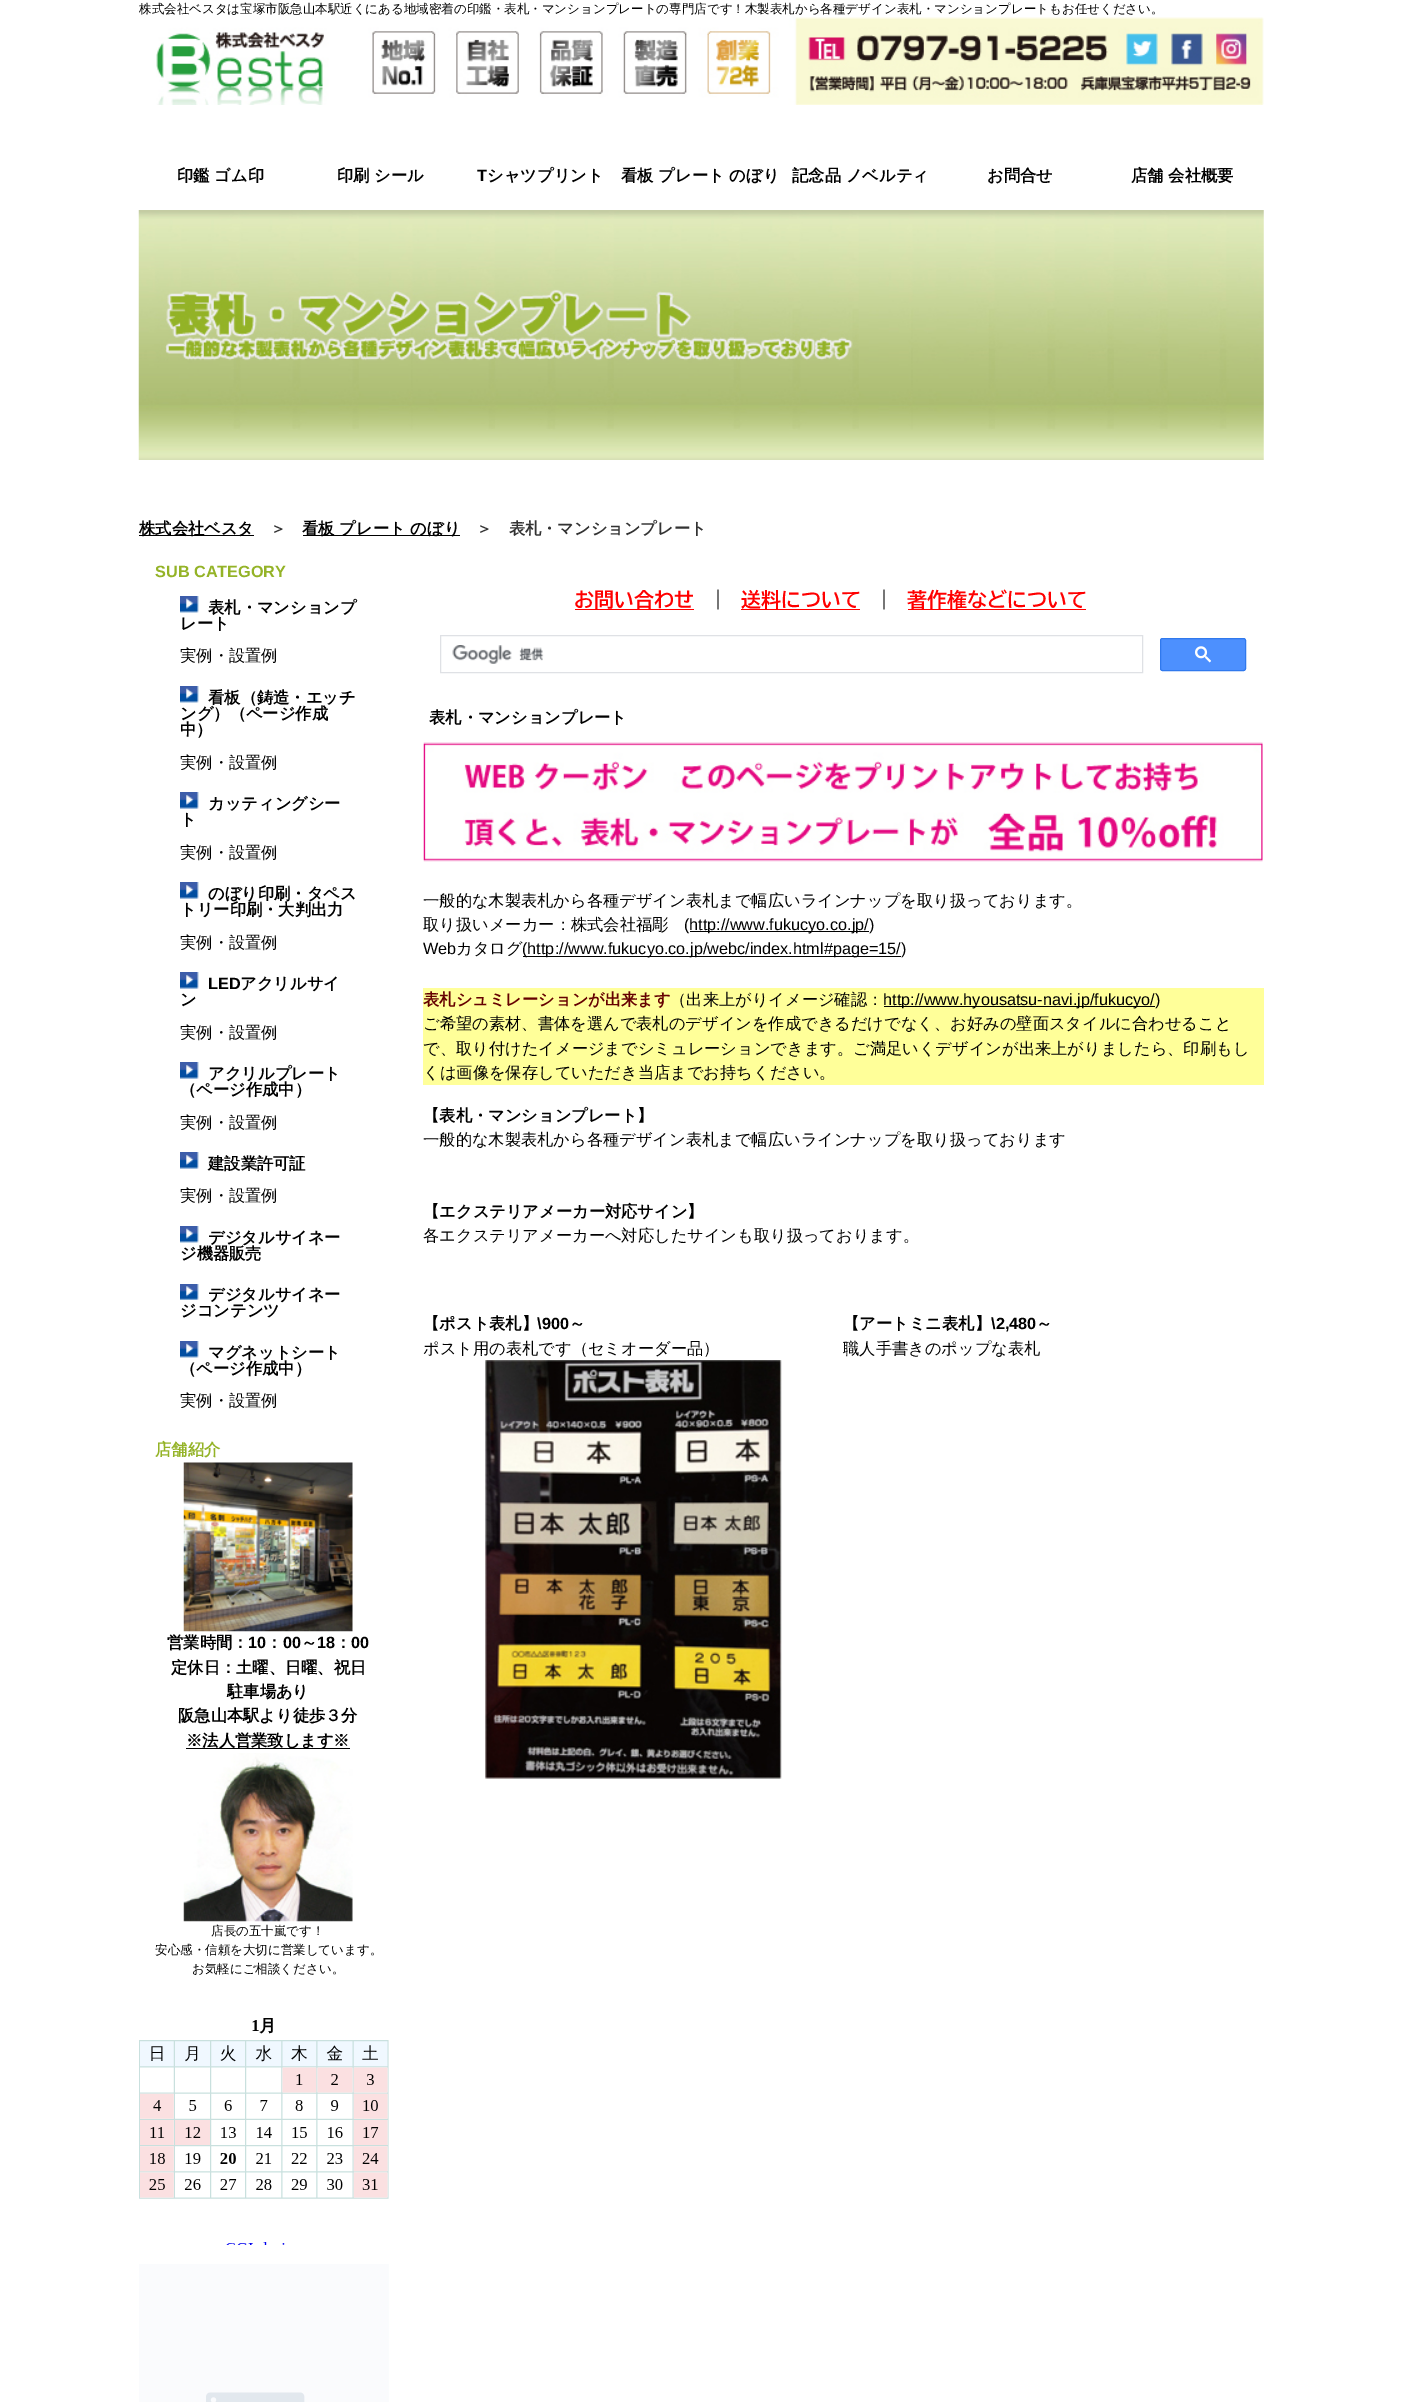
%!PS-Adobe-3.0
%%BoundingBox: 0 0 1402 2402
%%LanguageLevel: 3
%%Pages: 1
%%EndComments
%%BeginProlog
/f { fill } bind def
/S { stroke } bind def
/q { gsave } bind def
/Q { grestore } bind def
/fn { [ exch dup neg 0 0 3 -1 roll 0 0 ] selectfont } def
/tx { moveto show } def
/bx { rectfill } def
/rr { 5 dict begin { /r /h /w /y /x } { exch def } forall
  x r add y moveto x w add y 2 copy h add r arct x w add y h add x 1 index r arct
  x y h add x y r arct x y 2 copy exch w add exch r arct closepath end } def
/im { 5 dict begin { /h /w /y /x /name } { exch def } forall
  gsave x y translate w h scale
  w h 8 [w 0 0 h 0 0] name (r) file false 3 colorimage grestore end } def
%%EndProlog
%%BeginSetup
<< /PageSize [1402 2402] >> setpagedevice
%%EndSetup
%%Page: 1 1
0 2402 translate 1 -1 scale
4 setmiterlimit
1 setgray
0 0 1402 2402 bx
/WenQuanYiZenHei-Medium 12.5 fn
0 setgray
(株式会社ベスタは宝塚市阪急山本駅近くにある地域密着の印鑑・表札・マンションプレートの専門店です！木製表札から各種デザイン表札・マンションプレートもお任せください。) 139 13 tx
(image0.raw) 156 17 1108 88 im
/WenQuanYiZenHei-Bold 16.25 fn
(印鑑 ゴム印) 177 181 tx
(印刷 シール) 337 181 tx
/LiberationSans-Bold 16.25 fn
(T) 477 181 tx
/WenQuanYiZenHei-Bold 16.25 fn
(シャツプリント) 487 181 tx
(看板 プレート のぼり) 621 181 tx
(記念品 ノベルティ) 792 181 tx
(お問合せ) 987 181 tx
(店舗 会社概要) 1131 181 tx
(image1.raw) 138 210 1126 250 im
139 535 115 1 bx
(株式会社ベスタ) 139 534 tx
0.2 setgray
(＞) 270 534 tx
0 setgray
303 535 157 1 bx
(看板 プレート のぼり) 302 534 tx
0.2 setgray
(＞　表札・マンションプレート) 476 534 tx
/LiberationSans-Bold 16.25 fn
0.58 0.702 0.153 setrgbcolor
(SUB CATEGORY) 155 577 tx
(image2.raw) 180 596 19 17 im
/WenQuanYiZenHei-Bold 16.25 fn
0 setgray
(表札・マンションプ) 208 613 tx
(レート) 180 629 tx
/WenQuanYiZenHei-Medium 16.25 fn
(実例・設置例) 180 661 tx
(image2.raw) 180 686 19 17 im
/WenQuanYiZenHei-Bold 16.25 fn
(看板（鋳造・エッチ) 208 703 tx
(ング）（ページ作成) 180 719 tx
(中）) 180 735 tx
/WenQuanYiZenHei-Medium 16.25 fn
(実例・設置例) 180 768 tx
(image3.raw) 180 792 19 17 im
/WenQuanYiZenHei-Bold 16.25 fn
(カッティングシー) 208 809 tx
(ト) 180 825 tx
/WenQuanYiZenHei-Medium 16.25 fn
(実例・設置例) 180 858 tx
(image3.raw) 180 882 19 17 im
/WenQuanYiZenHei-Bold 16.25 fn
(のぼり印刷・タペス) 208 899 tx
(トリー印刷・大判出力) 180 915 tx
/WenQuanYiZenHei-Medium 16.25 fn
(実例・設置例) 180 948 tx
(image3.raw) 180 972 19 17 im
/LiberationSans-Bold 16.25 fn
(LED) 208 989 tx
/WenQuanYiZenHei-Bold 16.25 fn
(アクリルサイ) 240 989 tx
(ン) 180 1005 tx
/WenQuanYiZenHei-Medium 16.25 fn
(実例・設置例) 180 1038 tx
(image3.raw) 180 1062 19 17 im
/WenQuanYiZenHei-Bold 16.25 fn
(アクリルプレート) 208 1079 tx
(（ページ作成中）) 180 1095 tx
/WenQuanYiZenHei-Medium 16.25 fn
(実例・設置例) 180 1128 tx
(image3.raw) 180 1152 19 17 im
/WenQuanYiZenHei-Bold 16.25 fn
(建設業許可証) 208 1169 tx
/WenQuanYiZenHei-Medium 16.25 fn
(実例・設置例) 180 1201 tx
(image2.raw) 180 1226 19 17 im
/WenQuanYiZenHei-Bold 16.25 fn
(デジタルサイネー) 208 1243 tx
(ジ機器販売) 180 1259 tx
(image4.raw) 180 1284 19 16 im
(デジタルサイネー) 208 1300 tx
(ジコンテンツ) 180 1316 tx
(image2.raw) 180 1341 19 17 im
(マグネットシート) 208 1358 tx
(（ページ作成中）) 180 1374 tx
/WenQuanYiZenHei-Medium 16.25 fn
(実例・設置例) 180 1406 tx
/WenQuanYiZenHei-Bold 16.25 fn
0.58 0.702 0.153 setrgbcolor
(店舗紹介) 155 1455 tx
(image5.raw) 183 1462 170 170 im
0 setgray
(営業時間：) 167 1648 tx
/LiberationSans-Bold 16.25 fn
(10) 248 1648 tx
/WenQuanYiZenHei-Bold 16.25 fn
(：) 266 1648 tx
/LiberationSans-Bold 16.25 fn
(00) 283 1648 tx
/WenQuanYiZenHei-Bold 16.25 fn
(～) 301 1648 tx
/LiberationSans-Bold 16.25 fn
(18) 317 1648 tx
/WenQuanYiZenHei-Bold 16.25 fn
(：) 335 1648 tx
/LiberationSans-Bold 16.25 fn
(00) 351 1648 tx
/WenQuanYiZenHei-Bold 16.25 fn
(定休日：土曜、日曜、祝日) 171 1673 tx
(駐車場あり) 227 1697 tx
(阪急山本駅より徒歩３分) 178 1721 tx
186 1748 164 1 bx
(※法人営業致します※) 186 1746 tx
(image6.raw) 183 1753 170 169 im
/WenQuanYiZenHei-Medium 12.5 fn
(店長の五十嵐です！) 211 1935 tx
(安心感・信頼を大切に営業しています。) 155 1954 tx
(お気軽にご相談ください。) 192 1973 tx
(image7.raw) 139 2018 250 227 im
(image8.raw) 139 2264 250 138 im
/BIZUDPGothic-Bold 20 fn
1 0 0 setrgbcolor
(お問い合わせ) 574 607 tx
575 609 119 1 bx
0 setgray
(｜) 708 607 tx
1 0 0 setrgbcolor
(送料について) 741 607 tx
741 609 119 1 bx
0 setgray
(｜) 874 607 tx
1 0 0 setrgbcolor
(著作権などについて) 907 607 tx
908 609 178 1 bx
0.875 0.882 0.898 setrgbcolor
440.5 635.5 702 37 rectstroke
(image9.raw) 452 645 92 19 im
0.302 0.565 0.996 setrgbcolor
1160.5 638.5 85 32 2 rr q f Q
0.188 0.475 0.929 setrgbcolor
S
(image10.raw) 1195 646 16 17 im
/WenQuanYiZenHei-Bold 16.25 fn
0 setgray
(表札・マンションプレート) 429 723 tx
(image11.raw) 423 742 840 120 im
/WenQuanYiZenHei-Medium 16.25 fn
(一般的な木製表札から各種デザイン表札まで幅広いラインナップを取り扱っております。) 423 906 tx
(取り扱いメーカー：株式会社福彫) 423 930 tx
/LiberationSans-Regular 16.25 fn
(\() 684 930 tx
690 931 179 1 bx
(http://www.fukucyo.co.jp/\)) 689 930 tx
(Web) 423 954 tx
/WenQuanYiZenHei-Medium 16.25 fn
(カタログ) 456 954 tx
523 956 378 1 bx
/LiberationSans-Regular 16.25 fn
(\(http://www.fukucyo.co.jp/webc/index.html#page=15/\)) 522 954 tx
1 1 0.6 setrgbcolor
423 988 841 97 bx
/WenQuanYiZenHei-Bold 16.25 fn
0.396 0 0 setrgbcolor
(表札シュミレーションが出来ます) 423 1005 tx
/WenQuanYiZenHei-Medium 16.25 fn
0 setgray
(（出来上がりイメージ確認：) 670 1005 tx
884 1006 271 1 bx
/LiberationSans-Regular 16.25 fn
(http://www.hyousatsu-navi.jp/fukucyo/\)) 883 1005 tx
/WenQuanYiZenHei-Medium 16.25 fn
(ご希望の素材、書体を選んで表札のデザインを作成できるだけでなく、お好みの壁面スタイルに合わせること) 423 1029 tx
(で、取り付けたイメージまでシミュレーションできます。ご満足いくデザインが出来上がりましたら、印刷もし) 423 1054 tx
(くは画像を保存していただき当店までお持ちください。) 423 1078 tx
/WenQuanYiZenHei-Bold 16.25 fn
(【表札・マンションプレート】) 423 1121 tx
/WenQuanYiZenHei-Medium 16.25 fn
(一般的な木製表札から各種デザイン表札まで幅広いラインナップを取り扱っております) 423 1145 tx
/WenQuanYiZenHei-Bold 16.25 fn
(【エクステリアメーカー対応サイン】) 423 1217 tx
/WenQuanYiZenHei-Medium 16.25 fn
(各エクステリアメーカーへ対応したサインも取り扱っております。) 423 1241 tx
/WenQuanYiZenHei-Bold 16.25 fn
(【ポスト表札】) 423 1329 tx
/LiberationSans-Bold 16.25 fn
(\\900) 537 1329 tx
/WenQuanYiZenHei-Bold 16.25 fn
(～) 569 1329 tx
/WenQuanYiZenHei-Medium 16.25 fn
(ポスト用の表札です（セミオーダー品）) 423 1354 tx
/WenQuanYiZenHei-Bold 16.25 fn
(【アートミニ表札】) 843 1329 tx
/LiberationSans-Bold 16.25 fn
(\\2,480) 991 1329 tx
/WenQuanYiZenHei-Bold 16.25 fn
(～) 1036 1329 tx
/WenQuanYiZenHei-Medium 16.25 fn
(職人手書きのポップな表札) 843 1354 tx
(image12.raw) 485 1360 297 419 im
showpage
%%EOF
